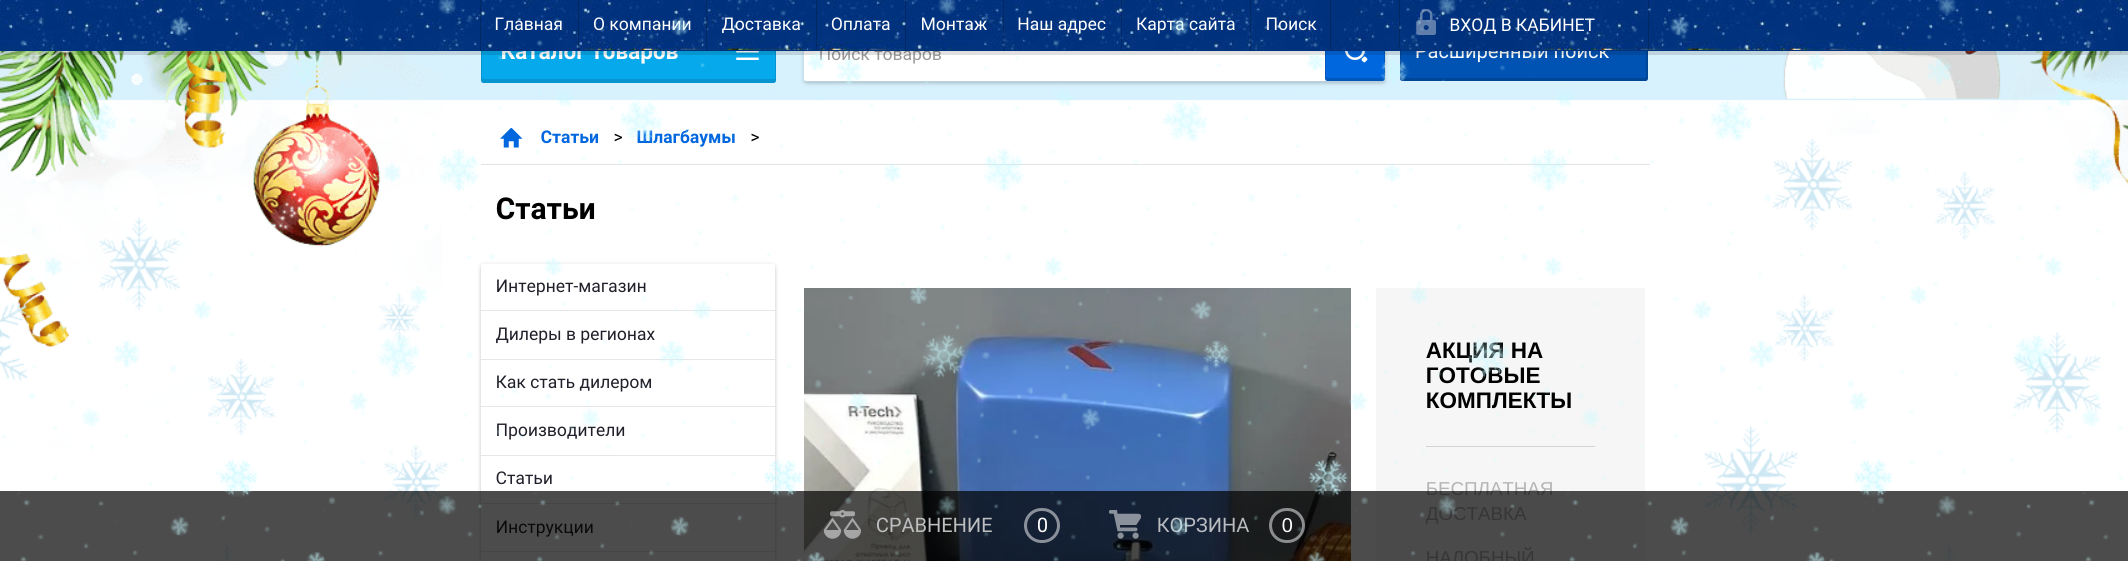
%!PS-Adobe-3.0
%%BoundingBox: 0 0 2128 561
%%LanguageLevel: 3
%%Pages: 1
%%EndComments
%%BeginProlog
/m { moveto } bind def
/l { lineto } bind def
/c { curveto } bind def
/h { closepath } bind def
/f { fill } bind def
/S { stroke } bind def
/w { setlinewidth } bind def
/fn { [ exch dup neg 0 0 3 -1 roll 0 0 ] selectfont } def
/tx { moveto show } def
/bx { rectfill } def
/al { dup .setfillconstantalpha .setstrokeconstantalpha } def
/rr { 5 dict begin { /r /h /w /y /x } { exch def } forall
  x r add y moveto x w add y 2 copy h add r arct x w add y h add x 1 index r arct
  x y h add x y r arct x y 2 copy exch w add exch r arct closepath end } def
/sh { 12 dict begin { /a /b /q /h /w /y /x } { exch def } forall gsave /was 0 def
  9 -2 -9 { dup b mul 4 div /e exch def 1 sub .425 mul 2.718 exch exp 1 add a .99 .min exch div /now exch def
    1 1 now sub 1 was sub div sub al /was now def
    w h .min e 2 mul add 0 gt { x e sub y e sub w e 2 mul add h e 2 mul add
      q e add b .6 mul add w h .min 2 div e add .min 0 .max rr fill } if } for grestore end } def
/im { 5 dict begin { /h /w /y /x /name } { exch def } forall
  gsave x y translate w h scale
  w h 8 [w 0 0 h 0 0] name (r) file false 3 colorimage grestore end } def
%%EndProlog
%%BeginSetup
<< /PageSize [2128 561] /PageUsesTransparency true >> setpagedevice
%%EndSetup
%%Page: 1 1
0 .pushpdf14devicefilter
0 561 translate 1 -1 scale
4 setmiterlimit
1 setgray
0 0 2128 561 bx
(image0.raw) 0 51 2128 510 im
0 setgray
804 23 581 60 2.5 2 0.24 sh
1 setgray
804 21 581 60 2.5 rr f
/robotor-Regular 17.5 fn
0.6 setgray
(Поиск товаров) 819 60 tx
0.004 0.404 0.871 setrgbcolor
1325 21 60 60 2.5 rr f
0.16 al
0 setgray
1326 21 m 1325 22 1325 23 1325 24 c 1325 78 l 1325 80 1326 81 1328 81 c 1382 81 l 1384 81 1385 80 1385 78 c 1385 24 l 1385 23 1385 22 1384 21 c 1384 76 l 1384 77 1383 78 1382 78 c 1328 78 l 1327 78 1326 77 1326 76 c h f
1 al
(image6.raw) 1345 51 23 12 im
0 0.325 0.702 setrgbcolor
1400 21 248 60 2.5 rr f
0.16 al
0 setgray
1401 21 m 1400 22 1400 23 1400 24 c 1400 78 l 1400 80 1401 81 1402 81 c 1646 81 l 1647 81 1648 80 1648 78 c 1648 24 l 1648 22 1647 21 1646 21 c 1646 76 l 1646 77 1646 78 1645 78 c 1402 78 l 1401 76 l h f
1 al
0.882 0.886 0.89 setrgbcolor
481 164 1169 1 bx
(image7.raw) 500 128 23 20 im
/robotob-Bold 17.5 fn
0.004 0.404 0.871 setrgbcolor
(Статьи) 541 143 tx
/robotor-Regular 17.5 fn
0 setgray
(>) 614 143 tx
/robotob-Bold 17.5 fn
0.004 0.404 0.871 setrgbcolor
(Шлагбаумы) 636 143 tx
/robotor-Regular 17.5 fn
0 setgray
(>) 750 143 tx
/robotob-Bold 30 fn
(Статьи) 496 219 tx
(image8.raw) 804 288 547 273 im
0.965 setgray
1376 288 269 273 bx
0.827 setgray
1426 446 169 1 bx
/LiberationSans-Bold 22.5 fn
0 setgray
(АКЦИЯ НА) 1426 358 tx
(ГОТОВЫЕ) 1426 383 tx
(КОМПЛЕКТЫ) 1426 408 tx
/LiberationSans-Regular 18.75 fn
0.706 setgray
(БЕСПЛАТНАЯ) 1426 495 tx
0.024 0.663 0.922 setrgbcolor
481 21 295 62 2.5 rr f
0.11 al
0 setgray
482 21 m 481 22 481 23 481 24 c 481 80 l 481 82 482 83 484 83 c 774 83 l 775 83 776 82 776 80 c 776 24 l 776 23 776 22 775 21 c 775 78 l 774 79 l 484 79 l 482 78 l h f
1 al
(image9.raw) 736 51 23 9 im
481 265 294 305 2.5 2 0.24 sh
1 setgray
481 264 294 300 2.5 rr f
/robotor-Regular 17.5 fn
0.125 0.125 0.165 setrgbcolor
(Интернет-магазин) 496 292 tx
0.902 setgray
481 310 294 1 bx
0.125 0.125 0.165 setrgbcolor
(Дилеры в регионах) 496 340 tx
0.902 setgray
481 359 294 1 bx
0.125 0.125 0.165 setrgbcolor
(Как стать дилером) 496 388 tx
0.902 setgray
481 406 294 1 bx
0.125 0.125 0.165 setrgbcolor
(Производители) 496 436 tx
0.902 setgray
481 455 294 1 bx
0.125 0.125 0.165 setrgbcolor
(Статьи) 496 484 tx
0.902 setgray
481 503 294 1 bx
481 551 294 1 bx
0.7 al
0 setgray
0 491 2128 70 bx
1 al
(image3.raw) 75 58 2039 439 im
0.12 al
0 51 m 0 55 l 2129 55 l 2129 4 l 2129 51 l h f
1 al
0 0.196 0.49 setrgbcolor
0 50 2128 1 bx
(image4.raw) 0 0 2128 50 im
0.2 al
0 setgray
480 0 1 51 bx
1 al
1 setgray
(Главная) 494 30 tx
0.2 al
0 setgray
578 0 1 51 bx
1 al
1 setgray
(О компании) 593 30 tx
0.2 al
0 setgray
706 0 1 51 bx
1 al
1 setgray
(Доставка) 722 30 tx
0.2 al
0 setgray
816 0 1 51 bx
1 al
1 setgray
(Оплата) 831 30 tx
0.2 al
0 setgray
905 0 1 51 bx
1 al
1 setgray
(Монтаж) 921 30 tx
0.2 al
0 setgray
1003 0 1 51 bx
1 al
1 setgray
(Наш адрес) 1017 30 tx
0.2 al
0 setgray
1121 0 1 51 bx
1 al
1 setgray
(Карта сайта) 1136 30 tx
0.2 al
0 setgray
1250 0 1 51 bx
1 al
1 setgray
(Поиск) 1266 30 tx
0 0.153 0.392 setrgbcolor
1330 0 1 51 bx
0.2 al
0 setgray
1399 0 1 50 bx
1 al
(image5.raw) 1416 9 20 26 im
1 setgray
(ВХОД В КАБИНЕТ) 1449 31 tx
0.2 al
0 setgray
1648 0 1 50 bx
1 al
(image10.raw) 824 510 37 29 im
/robotor-Regular 20 fn
0.745 0.749 0.753 setrgbcolor
(СРАВНЕНИЕ) 876 532 tx
0.541 0.565 0.6 setrgbcolor
3 w
1025.5 509.5 33 32 16 rr S
1 setgray
(0) 1037 532 tx
(image11.raw) 1109 510 32 29 im
0.745 0.749 0.753 setrgbcolor
(КОРЗИНА) 1157 532 tx
0.5 al
1 setgray
1270.5 509.5 33 32 16 rr S
/LiberationSans-Regular 20 fn
1 al
(0) 1282 532 tx
(image2.raw) 45 0 2055 561 im
(image1.raw) 2 0 2121 561 im
.poppdf14devicefilter showpage
%%EOF
